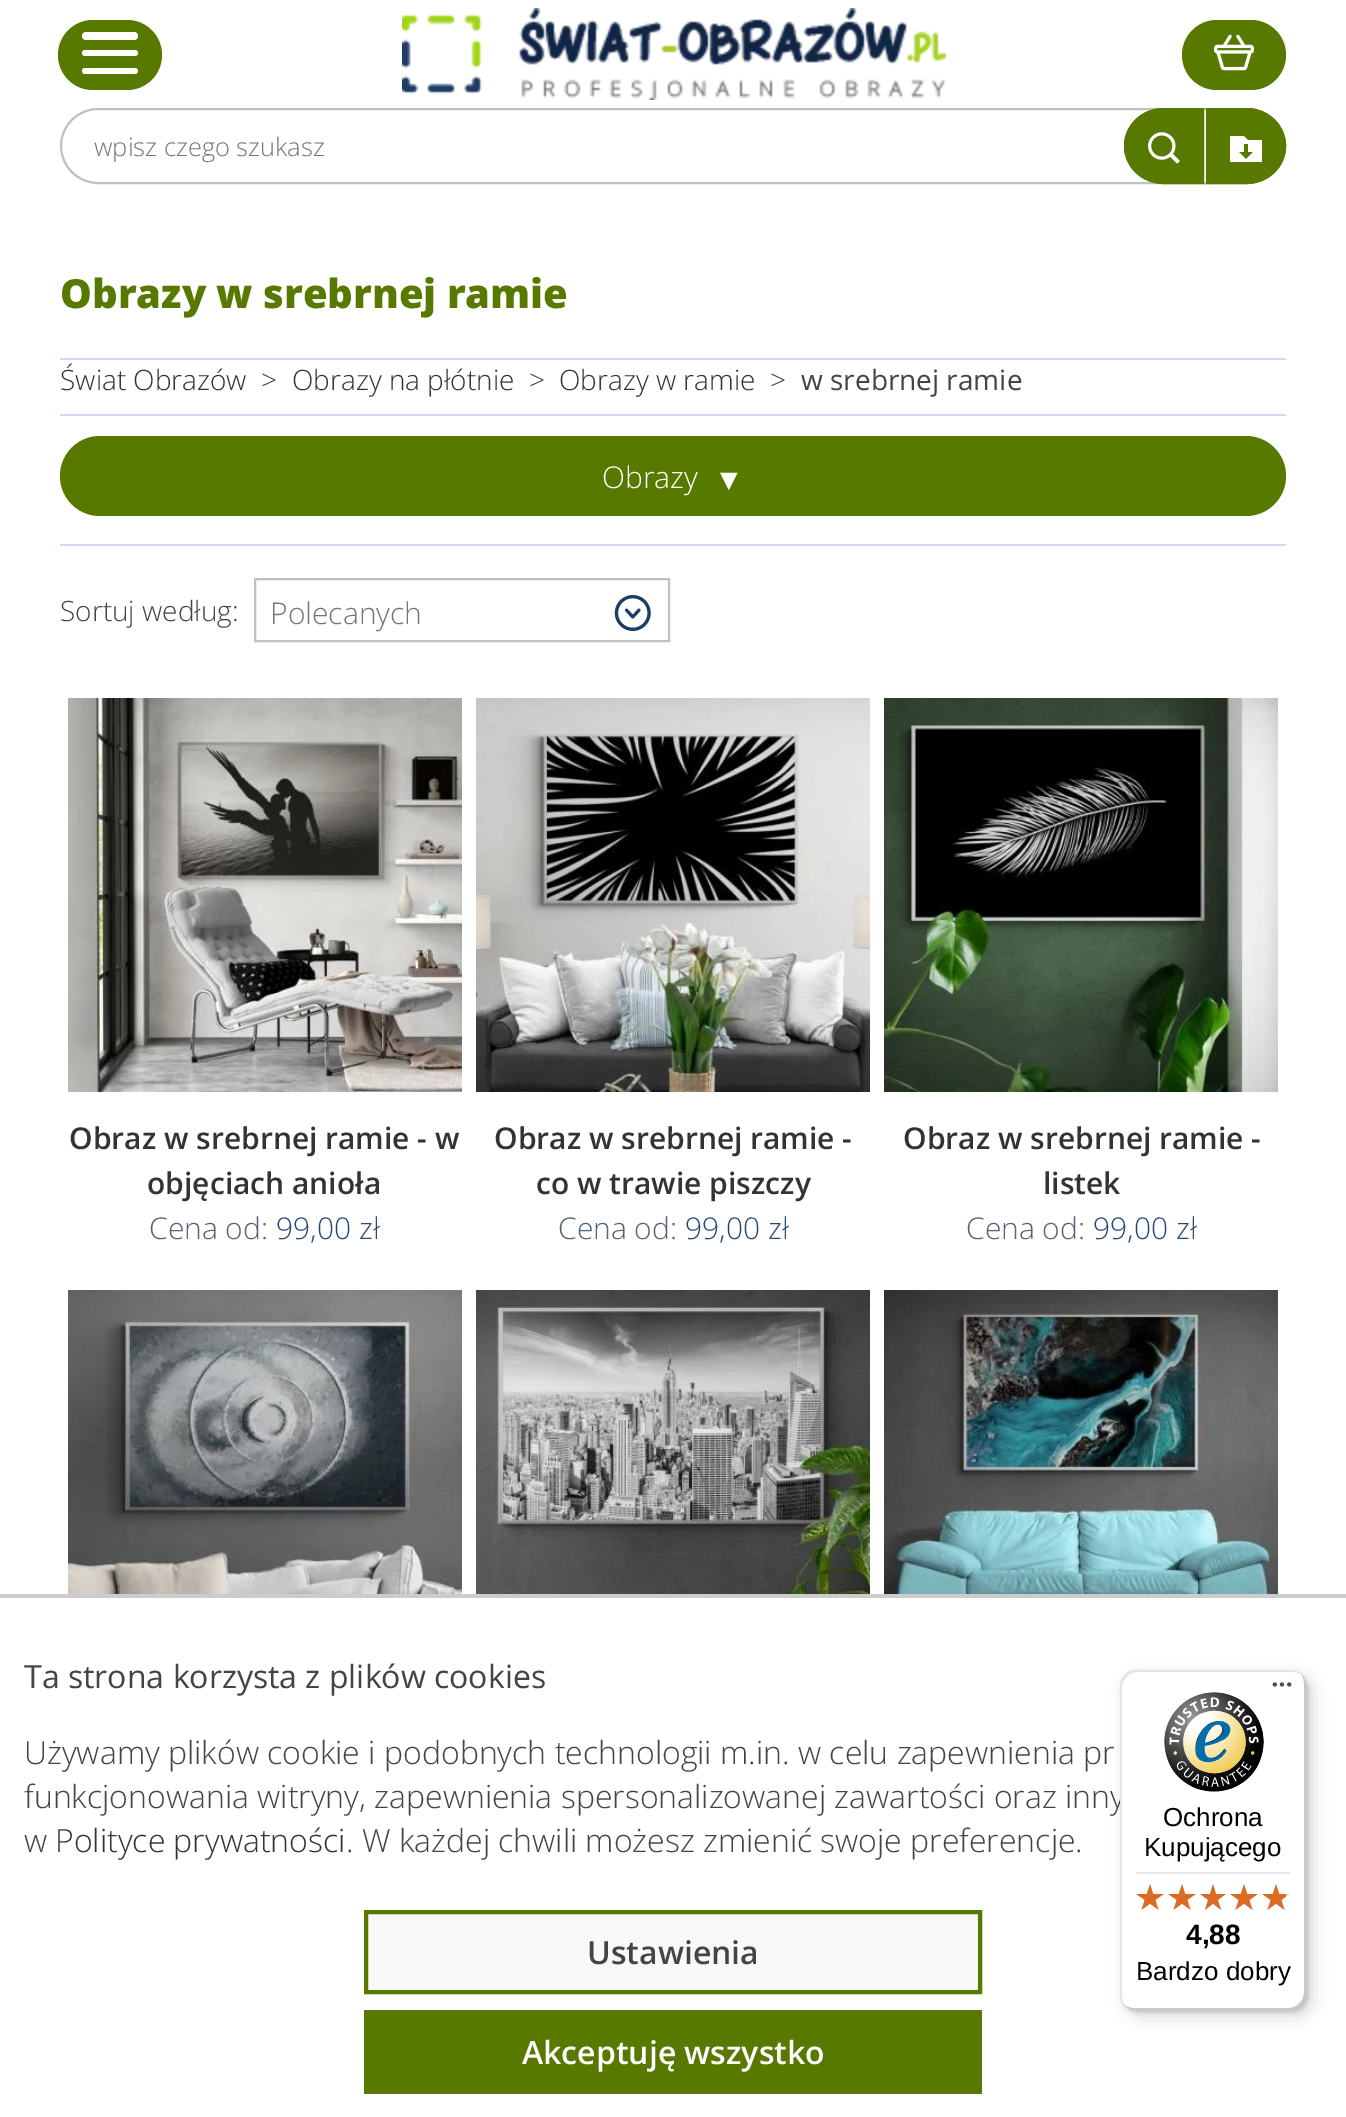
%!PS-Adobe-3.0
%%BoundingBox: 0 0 1346 2117
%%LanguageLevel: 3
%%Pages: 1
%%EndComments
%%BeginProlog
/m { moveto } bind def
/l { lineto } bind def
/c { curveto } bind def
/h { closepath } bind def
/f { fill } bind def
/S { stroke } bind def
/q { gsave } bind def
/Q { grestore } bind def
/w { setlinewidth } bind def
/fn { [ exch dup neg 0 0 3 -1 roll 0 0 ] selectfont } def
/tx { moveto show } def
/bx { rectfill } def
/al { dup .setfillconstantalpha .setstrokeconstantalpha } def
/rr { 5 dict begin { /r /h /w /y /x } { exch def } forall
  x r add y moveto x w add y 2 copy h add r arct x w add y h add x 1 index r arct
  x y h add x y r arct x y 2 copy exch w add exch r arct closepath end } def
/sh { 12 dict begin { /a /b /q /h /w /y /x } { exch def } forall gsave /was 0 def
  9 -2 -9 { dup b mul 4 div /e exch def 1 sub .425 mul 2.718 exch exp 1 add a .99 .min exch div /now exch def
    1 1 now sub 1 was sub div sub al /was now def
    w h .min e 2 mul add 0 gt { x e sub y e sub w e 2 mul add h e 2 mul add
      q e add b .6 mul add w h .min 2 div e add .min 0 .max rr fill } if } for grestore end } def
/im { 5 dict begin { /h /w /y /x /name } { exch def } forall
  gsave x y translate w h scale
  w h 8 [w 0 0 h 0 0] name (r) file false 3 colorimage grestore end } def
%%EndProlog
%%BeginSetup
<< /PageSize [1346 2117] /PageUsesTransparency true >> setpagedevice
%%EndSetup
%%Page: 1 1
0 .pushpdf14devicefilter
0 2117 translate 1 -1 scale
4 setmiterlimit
1 setgray
0 0 1346 2117 bx
0.345 0.475 0 setrgbcolor
58 20 104 70 35 rr f
1 setgray
82 32 56 8 4 rr f
82 50 56 6 3 rr f
82 68 56 6 3 rr f
(image0.raw) 402 8 544 92 im
0.345 0.475 0 setrgbcolor
1182 20 104 70 35 rr f
(image1.raw) 1214 34 40 37 im
0.753 setgray
2 w
61 109 1224 74 37 rr S
/OpenSans-Light 25.5 fn
0.459 setgray
(wpisz czego szukasz) 94 156 tx
0.345 0.475 0 setrgbcolor
1164 108 m 1204 108 l 1204 184 l 1164 184 l 1142 184 1124 167 1124 146 c 1124 125 1142 108 1164 108 c h f
4 w
1164 110 m 1202 110 l 1202 182 l 1164 182 l 1143 182 1126 166 1126 146 c 1126 126 1143 110 1164 110 c h S
(image2.raw) 1148 132 32 32 im
1206 108 m 1246 108 l 1268 108 1286 125 1286 146 c 1286 167 1268 184 1246 184 c 1206 184 l h f
1208 110 m 1246 110 l 1267 110 1284 126 1284 146 c 1284 166 1267 182 1246 182 c 1208 182 l h S
(image3.raw) 1230 136 32 26 im
0.812 0.855 0.918 setrgbcolor
60 358 1226 2 bx
/OpenSans-ExtraBold 40 fn
0.345 0.475 0 setrgbcolor
(Obrazy w srebrnej ramie) 60 308 tx
0.812 0.855 0.918 setrgbcolor
60 414 1226 2 bx
/OpenSans-Light 28 fn
0.2 setgray
(Świat Obrazów) 60 390 tx
0.267 setgray
(>) 261 390 tx
0.2 setgray
(Obrazy na płótnie) 292 390 tx
0.267 setgray
(>) 529 390 tx
0.2 setgray
(Obrazy w ramie) 559 390 tx
0.267 setgray
(>) 770 390 tx
/OpenSans-Regular 28 fn
(w srebrnej ramie) 801 390 tx
0.812 0.855 0.918 setrgbcolor
60 544 1226 2 bx
0.345 0.475 0 setrgbcolor
60 436 1226 80 40 rr f
/OpenSans-Light 30 fn
1 setgray
(Obrazy) 602 488 tx
/LiberationSerif-Regular 30 fn
(▼) 714 490 tx
/OpenSans-Light 28 fn
0.267 setgray
(Sortuj według:) 60 621 tx
0.753 setgray
2 w
255 579 414 62 rectstroke
/OpenSans-Light 30 fn
0.459 setgray
(Polecanych) 270 624 tx
(image4.raw) 614 595 37 36 im
(image5.raw) 68 698 394 394 im
/OpenSans-SemiBold 30 fn
0.2 setgray
(Obraz w srebrnej ramie - w) 69 1149 tx
(objęciach anioła) 147 1194 tx
/OpenSans-Light 30 fn
0.337 0.392 0.467 setrgbcolor
(Cena od:) 149 1239 tx
0.157 0.282 0.463 setrgbcolor
(99,00 zł) 276 1239 tx
(image6.raw) 476 698 394 394 im
/OpenSans-SemiBold 30 fn
0.2 setgray
(Obraz w srebrnej ramie -) 494 1149 tx
(co w trawie piszczy) 536 1194 tx
/OpenSans-Light 30 fn
0.337 0.392 0.467 setrgbcolor
(Cena od:) 558 1239 tx
0.157 0.282 0.463 setrgbcolor
(99,00 zł) 685 1239 tx
(image7.raw) 884 698 394 394 im
/OpenSans-SemiBold 30 fn
0.2 setgray
(Obraz w srebrnej ramie -) 903 1149 tx
(listek) 1043 1194 tx
/OpenSans-Light 30 fn
0.337 0.392 0.467 setrgbcolor
(Cena od:) 966 1239 tx
0.157 0.282 0.463 setrgbcolor
(99,00 zł) 1093 1239 tx
(image8.raw) 68 1290 394 304 im
(image9.raw) 476 1290 394 304 im
(image10.raw) 884 1290 394 304 im
0.8 setgray
0 1594 1346 4 bx
/OpenSans-Regular 32 fn
0.267 setgray
(Ta strona korzysta z plików cookies) 24 1688 tx
/OpenSans-Light 32 fn
(Używamy plików cookie i podobnych technologii m.in. w celu zapewnienia pr) 24 1764 tx
(funkcjonowania witryny, zapewnienia spersonalizowanej zawartości oraz inny) 24 1808 tx
(w) 24 1852 tx
0.2 setgray
(Polityce prywatności) 55 1852 tx
0.267 setgray
(. W każdej chwili możesz zmienić swoje preferencje.) 346 1852 tx
0.973 setgray
366 1912 m 980 1912 l 980 1992 l 366 1992 l h q f Q
0.345 0.475 0 setrgbcolor
4 w
S
/OpenSans-SemiBold 32 fn
0.267 setgray
(Ustawienia) 587 1964 tx
0.345 0.475 0 setrgbcolor
364 2010 618 84 bx
1 setgray
(Akceptuję wszystko) 522 2064 tx
0 setgray
1126 1676 186 340 16 8 0.15 sh
1122 1672 186 340 16 2 0.15 sh
1 setgray
1120 1670 186 340 16 rr f
0.1 al
0 setgray
1138 1672 m 1292 1672 l 1296 1672 1299 1673 1302 1675 c 1299 1672 1295 1670 1290 1670 c 1136 1670 l 1127 1670 1120 1677 1120 1686 c 1120 1994 l 1120 1999 1122 2003 1125 2006 c 1123 2003 1122 2000 1122 1996 c 1122 1688 l 1122 1679 1129 1672 1138 1672 c h f
0.2 al
1124 2005 m 1127 2008 1131 2010 1136 2010 c 1290 2010 l 1299 2010 1306 2003 1306 1994 c 1306 1686 l 1306 1681 1304 1677 1301 1674 c 1303 1677 1304 1680 1304 1684 c 1304 1992 l 1304 2001 1297 2008 1288 2008 c 1134 2008 l 1130 2008 1127 2007 1124 2005 c h f
0.196 setgray
1125 2005 m 1128 2008 1132 2010 1136 2010 c 1290 2010 l 1299 2010 1306 2003 1306 1994 c 1306 1686 l 1306 1682 1304 1678 1301 1675 c 1304 1678 1305 1681 1305 1685 c 1305 1993 l 1305 2002 1298 2009 1289 2009 c 1135 2009 l 1131 2009 1128 2008 1125 2005 c h f
0.3 al
1 setgray
1125 2005 m 1128 2008 1132 2010 1136 2010 c 1290 2010 l 1299 2010 1306 2003 1306 1994 c 1306 1686 l 1306 1682 1304 1678 1301 1675 c 1304 1678 1305 1681 1305 1685 c 1305 1993 l 1305 2002 1298 2009 1289 2009 c 1135 2009 l 1131 2009 1128 2008 1125 2005 c h f
1 al
(image11.raw) 1272 1682 20 5 im
(image12.raw) 1164 1692 100 100 im
/LiberationSans-Regular 26 fn
0 setgray
(Ochrona) 1163 1826 tx
(Kupującego) 1144 1856 tx
0.898 setgray
1136 1872 154 2 bx
(image13.raw) 1136 1884 28 26 im
(image13.raw) 1168 1884 28 26 im
(image14.raw) 1200 1884 26 26 im
(image13.raw) 1230 1884 28 26 im
(image13.raw) 1262 1884 28 26 im
(image15.raw) 1136 1884 28 26 im
(image15.raw) 1168 1884 28 26 im
(image16.raw) 1200 1884 26 26 im
(image15.raw) 1230 1884 28 26 im
(image17.raw) 1262 1884 24 26 im
/LiberationSans-Bold 28 fn
0 setgray
(4,88) 1186 1944 tx
/LiberationSans-Regular 26 fn
(Bardzo dobry) 1136 1980 tx
.poppdf14devicefilter showpage
%%EOF
